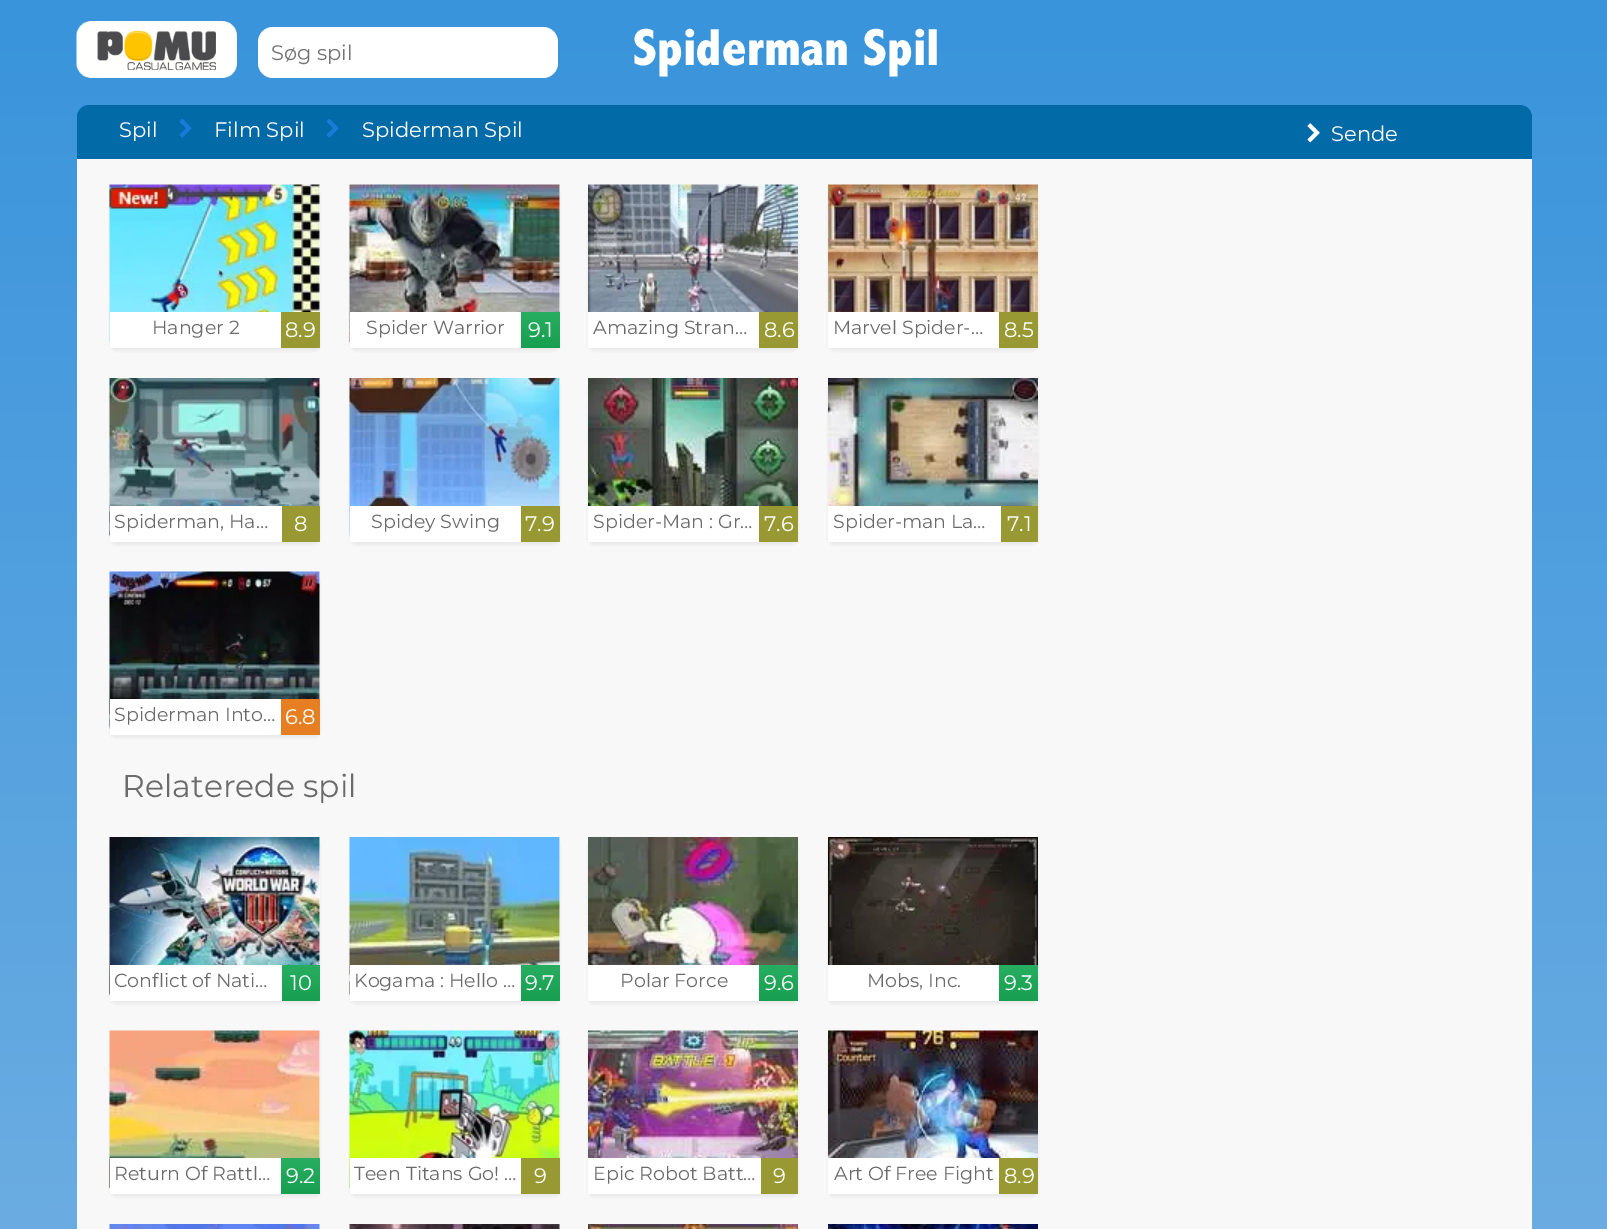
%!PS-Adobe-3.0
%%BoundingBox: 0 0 1607 1229
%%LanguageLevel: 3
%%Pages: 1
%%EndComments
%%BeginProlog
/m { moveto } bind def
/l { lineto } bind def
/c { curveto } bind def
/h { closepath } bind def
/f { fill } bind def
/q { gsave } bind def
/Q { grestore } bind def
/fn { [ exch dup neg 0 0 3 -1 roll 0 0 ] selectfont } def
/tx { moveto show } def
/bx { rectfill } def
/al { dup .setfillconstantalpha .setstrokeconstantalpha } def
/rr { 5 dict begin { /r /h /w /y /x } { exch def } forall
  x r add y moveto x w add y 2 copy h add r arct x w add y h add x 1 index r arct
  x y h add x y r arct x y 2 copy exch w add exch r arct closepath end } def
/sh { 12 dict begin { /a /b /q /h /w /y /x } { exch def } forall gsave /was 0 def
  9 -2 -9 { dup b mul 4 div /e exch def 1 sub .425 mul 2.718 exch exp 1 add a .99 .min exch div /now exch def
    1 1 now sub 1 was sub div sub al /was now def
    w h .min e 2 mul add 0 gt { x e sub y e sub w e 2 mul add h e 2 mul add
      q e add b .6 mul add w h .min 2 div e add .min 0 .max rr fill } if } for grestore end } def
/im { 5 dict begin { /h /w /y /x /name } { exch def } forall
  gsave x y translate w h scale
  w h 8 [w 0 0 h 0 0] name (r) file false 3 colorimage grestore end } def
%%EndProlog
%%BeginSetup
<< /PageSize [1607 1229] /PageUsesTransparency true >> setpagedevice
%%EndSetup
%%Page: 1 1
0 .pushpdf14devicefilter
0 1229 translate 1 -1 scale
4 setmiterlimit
1 setgray
0 0 1607 1229 bx
q 0 0 m 1607 0 l 1607 1229 l 0 1229 l h clip newpath
<< /ShadingType 2 /ColorSpace /DeviceRGB /Coords [804 0 804 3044] /Extend [true true] /Function << /FunctionType 2 /Domain [0 1] /C0 [0.224 0.58 0.859] /C1 [0.706 0.82 0.929] /N 1 >> >> shfill Q
(image0.raw) 76 21 161 57 im
258 27 300 51 15 rr f
/Montserrat-Regular 21 fn
0.459 setgray
(Søg spil) 271 60 tx
/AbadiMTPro-ExtraBold 52.5 fn
1 setgray
(Spiderman Spil) 633 65 tx
0.973 setgray
98 105 m 1511 105 l 1522.5 105 1532 114.5 1532 126 c 1532 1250 l 77 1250 l 77 126 l 77 114.5 86.5 105 98 105 c h f
0.008 0.416 0.655 setrgbcolor
89 105 m 1520 105 l 1526.5 105 1532 110.5 1532 117 c 1532 159 l 77 159 l 77 117 l 77 110.5 82.5 105 89 105 c h f
/Montserrat-Regular 21 fn
1 setgray
(Spil) 119 137 tx
(image1.raw) 179 119 13 19 im
(Film Spil) 214 137 tx
(image1.raw) 326 119 13 19 im
(Spiderman Spil) 362 137 tx
(image2.raw) 1307 123 13 20 im
(Sende) 1331 141 tx
0.914 setgray
110 188 210 163 6 1.5 1 sh
1 setgray
319 185 1 127 bx
(image3.raw) 109 184 211 158 im
(image4.raw) 109 187 60 22 im
110 312 171 36 bx
/Montserrat-Regular 19 fn
0.42 setgray
(Hanger 2) 152 334 tx
0.6 0.6 0.2 setrgbcolor
281 312 39 36 bx
/Montserrat-Regular 21 fn
1 setgray
(8.9) 285 337 tx
0.914 setgray
350 188 210 163 6 1.5 1 sh
1 setgray
559 185 1 127 bx
(image5.raw) 349 184 211 158 im
350 312 171 36 bx
/Montserrat-Regular 19 fn
0.42 setgray
(Spider Warrior) 366 334 tx
q 521 312 m 560 312 l 560 348 l 521 348 l h clip newpath
<< /ShadingType 2 /ColorSpace /DeviceRGB /Coords [540 312 540 348] /Extend [true true] /Function << /FunctionType 2 /Domain [0 1] /C0 [0.153 0.682 0.38] /C1 [0.094 0.62 0.314] /N 1 >> >> shfill Q
/Montserrat-Regular 21 fn
1 setgray
(9.1) 528 337 tx
0.914 setgray
588 188 210 163 6 1.5 1 sh
(image6.raw) 588 184 210 128 im
1 setgray
588 312 171 36 bx
/Montserrat-Regular 19 fn
0.42 setgray
(Amazing Stran…) 593 334 tx
0.6 0.6 0.2 setrgbcolor
759 312 39 36 bx
/Montserrat-Regular 21 fn
1 setgray
(8.6) 764 337 tx
0.914 setgray
828 188 210 163 6 1.5 1 sh
(image7.raw) 828 184 210 128 im
1 setgray
828 312 171 36 bx
/Montserrat-Regular 19 fn
0.42 setgray
(Marvel Spider-…) 833 334 tx
0.6 0.6 0.2 setrgbcolor
999 312 39 36 bx
/Montserrat-Regular 21 fn
1 setgray
(8.5) 1004 337 tx
0.914 setgray
110 381 210 164 6 1.5 1 sh
1 setgray
319 378 1 128 bx
(image8.raw) 109 378 211 158 im
110 506 172 36 bx
/Montserrat-Regular 19 fn
0.42 setgray
(Spiderman, Ha…) 114 528 tx
0.6 0.6 0.2 setrgbcolor
282 506 38 36 bx
/Montserrat-Regular 21 fn
1 setgray
(8) 294 531 tx
0.914 setgray
350 381 210 164 6 1.5 1 sh
1 setgray
559 378 1 128 bx
(image9.raw) 349 378 211 158 im
350 506 171 36 bx
/Montserrat-Regular 19 fn
0.42 setgray
(Spidey Swing) 371 528 tx
0.6 0.6 0.2 setrgbcolor
521 506 39 36 bx
/Montserrat-Regular 21 fn
1 setgray
(7.9) 525 531 tx
0.914 setgray
588 381 210 164 6 1.5 1 sh
(image10.raw) 588 378 210 128 im
1 setgray
588 506 171 36 bx
/Montserrat-Regular 19 fn
0.42 setgray
(Spider-Man : Gr…) 593 528 tx
0.6 0.6 0.2 setrgbcolor
759 506 39 36 bx
/Montserrat-Regular 21 fn
1 setgray
(7.6) 764 531 tx
0.914 setgray
828 381 210 164 6 1.5 1 sh
(image11.raw) 828 378 210 128 im
1 setgray
828 506 173 36 bx
/Montserrat-Regular 19 fn
0.42 setgray
(Spider-man La…) 833 528 tx
0.6 0.6 0.2 setrgbcolor
1001 506 37 36 bx
/Montserrat-Regular 21 fn
1 setgray
(7.1) 1007 531 tx
0.914 setgray
110 575 210 163 6 1.5 1 sh
1 setgray
319 572 1 127 bx
(image12.raw) 109 571 211 158 im
110 699 171 36 bx
/Montserrat-Regular 19 fn
0.42 setgray
(Spiderman Into…) 114 721 tx
0.902 0.494 0.133 setrgbcolor
281 699 39 36 bx
/Montserrat-Regular 21 fn
1 setgray
(6.8) 285 724 tx
/Montserrat-Regular 31.5 fn
0.42 setgray
(Relaterede spil) 122 797 tx
0.914 setgray
110 840 210 164 6 1.5 1 sh
1 setgray
319 837 1 128 bx
(image13.raw) 109 837 211 158 im
110 965 172 36 bx
/Montserrat-Regular 19 fn
0.42 setgray
(Conflict of Nati…) 114 987 tx
q 282 965 m 320 965 l 320 1001 l 282 1001 l h clip newpath
<< /ShadingType 2 /ColorSpace /DeviceRGB /Coords [301 965 301 1001] /Extend [true true] /Function << /FunctionType 2 /Domain [0 1] /C0 [0.153 0.682 0.38] /C1 [0.094 0.62 0.314] /N 1 >> >> shfill Q
/Montserrat-Regular 21 fn
1 setgray
(10) 290 990 tx
0.914 setgray
350 840 210 164 6 1.5 1 sh
1 setgray
559 837 1 128 bx
(image14.raw) 349 837 211 158 im
350 965 171 36 bx
/Montserrat-Regular 19 fn
0.42 setgray
(Kogama : Hello …) 354 987 tx
q 521 965 m 560 965 l 560 1001 l 521 1001 l h clip newpath
<< /ShadingType 2 /ColorSpace /DeviceRGB /Coords [540 965 540 1001] /Extend [true true] /Function << /FunctionType 2 /Domain [0 1] /C0 [0.153 0.682 0.38] /C1 [0.094 0.62 0.314] /N 1 >> >> shfill Q
/Montserrat-Regular 21 fn
1 setgray
(9.7) 525 990 tx
0.914 setgray
588 840 210 164 6 1.5 1 sh
(image15.raw) 588 837 210 128 im
1 setgray
588 965 171 36 bx
/Montserrat-Regular 19 fn
0.42 setgray
(Polar Force) 620 987 tx
q 759 965 m 798 965 l 798 1001 l 759 1001 l h clip newpath
<< /ShadingType 2 /ColorSpace /DeviceRGB /Coords [779 965 779 1001] /Extend [true true] /Function << /FunctionType 2 /Domain [0 1] /C0 [0.153 0.682 0.38] /C1 [0.094 0.62 0.314] /N 1 >> >> shfill Q
/Montserrat-Regular 21 fn
1 setgray
(9.6) 764 990 tx
0.914 setgray
828 840 210 164 6 1.5 1 sh
(image16.raw) 828 837 210 128 im
1 setgray
828 965 171 36 bx
/Montserrat-Regular 19 fn
0.42 setgray
(Mobs, Inc.) 867 987 tx
q 999 965 m 1038 965 l 1038 1001 l 999 1001 l h clip newpath
<< /ShadingType 2 /ColorSpace /DeviceRGB /Coords [1019 965 1019 1001] /Extend [true true] /Function << /FunctionType 2 /Domain [0 1] /C0 [0.153 0.682 0.38] /C1 [0.094 0.62 0.314] /N 1 >> >> shfill Q
/Montserrat-Regular 21 fn
1 setgray
(9.3) 1004 990 tx
0.914 setgray
110 1034 210 163 6 1.5 1 sh
1 setgray
319 1031 1 127 bx
(image17.raw) 109 1030 211 158 im
110 1158 171 36 bx
/Montserrat-Regular 19 fn
0.42 setgray
(Return Of Rattl…) 114 1180 tx
q 281 1158 m 320 1158 l 320 1194 l 281 1194 l h clip newpath
<< /ShadingType 2 /ColorSpace /DeviceRGB /Coords [300 1158 300 1194] /Extend [true true] /Function << /FunctionType 2 /Domain [0 1] /C0 [0.153 0.682 0.38] /C1 [0.094 0.62 0.314] /N 1 >> >> shfill Q
/Montserrat-Regular 21 fn
1 setgray
(9.2) 286 1183 tx
0.914 setgray
350 1034 210 163 6 1.5 1 sh
1 setgray
559 1031 1 127 bx
(image18.raw) 349 1030 211 158 im
350 1158 171 36 bx
/Montserrat-Regular 19 fn
0.42 setgray
(Teen Titans Go! …) 354 1180 tx
0.6 0.6 0.2 setrgbcolor
521 1158 39 36 bx
/Montserrat-Regular 21 fn
1 setgray
(9) 534 1183 tx
0.914 setgray
588 1034 210 163 6 1.5 1 sh
(image19.raw) 588 1030 210 128 im
1 setgray
588 1158 173 36 bx
/Montserrat-Regular 19 fn
0.42 setgray
(Epic Robot Batt…) 593 1180 tx
0.6 0.6 0.2 setrgbcolor
761 1158 37 36 bx
/Montserrat-Regular 21 fn
1 setgray
(9) 773 1183 tx
0.914 setgray
828 1034 210 163 6 1.5 1 sh
(image20.raw) 828 1030 210 128 im
1 setgray
828 1158 171 36 bx
/Montserrat-Regular 19 fn
0.42 setgray
(Art Of Free Fight) 834 1180 tx
0.6 0.6 0.2 setrgbcolor
999 1158 39 36 bx
/Montserrat-Regular 21 fn
1 setgray
(8.9) 1004 1183 tx
319 1224 1 5 bx
(image21.raw) 109 1224 211 5 im
559 1224 1 5 bx
(image22.raw) 349 1224 211 5 im
(image23.raw) 588 1224 210 5 im
(image24.raw) 828 1224 210 5 im
.poppdf14devicefilter showpage
%%EOF
